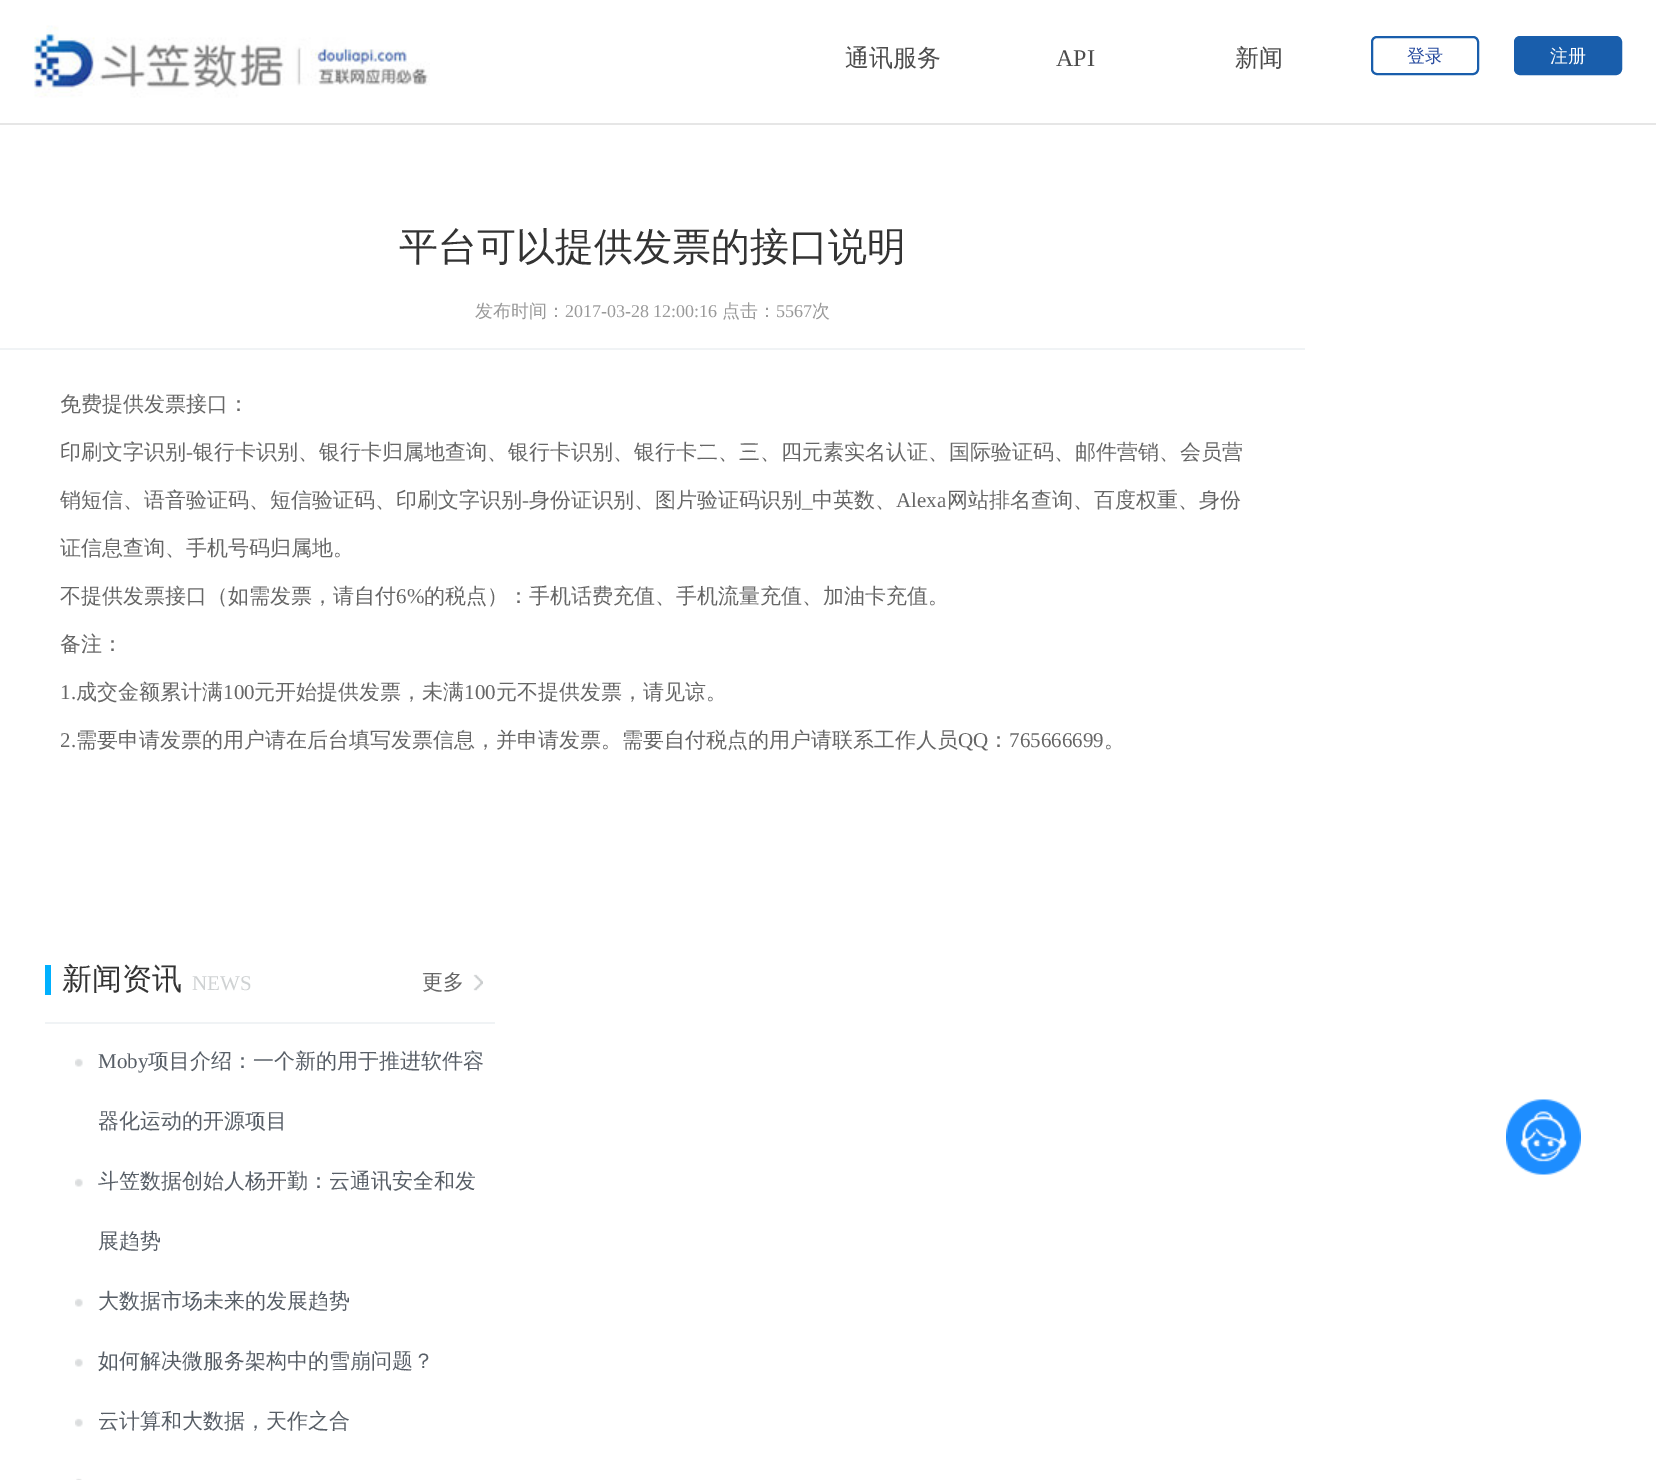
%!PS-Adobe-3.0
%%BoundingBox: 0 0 1656 1480
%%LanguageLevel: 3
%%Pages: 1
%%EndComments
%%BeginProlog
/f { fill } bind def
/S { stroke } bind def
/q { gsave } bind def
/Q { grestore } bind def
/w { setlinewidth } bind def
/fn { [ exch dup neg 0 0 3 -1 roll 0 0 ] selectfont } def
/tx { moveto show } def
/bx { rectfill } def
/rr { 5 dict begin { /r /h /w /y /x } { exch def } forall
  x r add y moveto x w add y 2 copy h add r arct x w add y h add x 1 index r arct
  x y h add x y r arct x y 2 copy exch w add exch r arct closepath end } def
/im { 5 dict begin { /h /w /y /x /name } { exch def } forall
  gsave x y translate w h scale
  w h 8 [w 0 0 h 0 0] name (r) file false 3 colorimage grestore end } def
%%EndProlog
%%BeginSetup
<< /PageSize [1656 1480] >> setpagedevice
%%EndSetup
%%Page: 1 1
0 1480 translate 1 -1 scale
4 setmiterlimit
1 setgray
0 0 1656 1480 bx
0.902 setgray
0 123 1656 2 bx
(image0.raw) 34 25 396 73 im
/WenQuanYiZenHei-Medium 24 fn
0.298 setgray
(通讯服务) 845 66 tx
/LiberationSerif-Regular 24 fn
(API) 1056 66 tx
/WenQuanYiZenHei-Medium 24 fn
(新闻) 1235 66 tx
0.098 0.369 0.675 setrgbcolor
2 w
1372 37 106 37 5 rr S
/WenQuanYiZenHei-Medium 18 fn
0.149 0.29 0.624 setrgbcolor
(登录) 1407 62 tx
0.098 0.369 0.675 setrgbcolor
1515 37 106 37 5 rr q f Q
S
1 setgray
(注册) 1550 62 tx
/WenQuanYiZenHei-Medium 39 fn
0.2 setgray
(平台可以提供发票的接口说明) 399 260 tx
0.941 0.953 0.961 setrgbcolor
0 348 1305 2 bx
/WenQuanYiZenHei-Medium 18 fn
0.6 setgray
(发布时间：) 475 317 tx
/LiberationSerif-Regular 18 fn
(2017-03-28 12:00:16) 565 317 tx
/WenQuanYiZenHei-Medium 18 fn
(点击：) 722 317 tx
/LiberationSerif-Regular 18 fn
(5567) 776 317 tx
/WenQuanYiZenHei-Medium 18 fn
(次) 812 317 tx
/WenQuanYiZenHei-Medium 21 fn
0.4 setgray
(免费提供发票接口：) 60 411 tx
(印刷文字识别) 60 459 tx
/LiberationSerif-Regular 21 fn
(-) 186 459 tx
/WenQuanYiZenHei-Medium 21 fn
(银行卡识别、银行卡归属地查询、银行卡识别、银行卡二、三、四元素实名认证、国际验证码、邮件营销、会员营) 193 459 tx
(销短信、语音验证码、短信验证码、印刷文字识别) 60 507 tx
/LiberationSerif-Regular 21 fn
(-) 522 507 tx
/WenQuanYiZenHei-Medium 21 fn
(身份证识别、图片验证码识别) 529 507 tx
(中英数、) 812 507 tx
/LiberationSerif-Regular 21 fn
(Alexa) 896 507 tx
/WenQuanYiZenHei-Medium 21 fn
(网站排名查询、百度权重、身份) 947 507 tx
/LiberationSerif-Regular 21 fn
(_) 802 507 tx
/WenQuanYiZenHei-Medium 21 fn
(证信息查询、手机号码归属地。) 60 555 tx
(不提供发票接口（如需发票，请自付) 60 603 tx
/LiberationSerif-Regular 21 fn
(6%) 396 603 tx
/WenQuanYiZenHei-Medium 21 fn
(的税点）：手机话费充值、手机流量充值、加油卡充值。) 424 603 tx
(备注：) 60 651 tx
/LiberationSerif-Regular 21 fn
(1.) 60 699 tx
/WenQuanYiZenHei-Medium 21 fn
(成交金额累计满) 76 699 tx
/LiberationSerif-Regular 21 fn
(100) 223 699 tx
/WenQuanYiZenHei-Medium 21 fn
(元开始提供发票，未满) 254 699 tx
/LiberationSerif-Regular 21 fn
(100) 464 699 tx
/WenQuanYiZenHei-Medium 21 fn
(元不提供发票，请见谅。) 496 699 tx
/LiberationSerif-Regular 21 fn
(2.) 60 747 tx
/WenQuanYiZenHei-Medium 21 fn
(需要申请发票的用户请在后台填写发票信息，并申请发票。需要自付税点的用户请联系工作人员) 76 747 tx
/LiberationSerif-Regular 21 fn
(QQ) 958 747 tx
/WenQuanYiZenHei-Medium 21 fn
(：) 988 747 tx
/LiberationSerif-Regular 21 fn
(765666699) 1009 747 tx
/WenQuanYiZenHei-Medium 21 fn
(。) 1104 747 tx
0.941 0.953 0.961 setrgbcolor
45 1022 450 2 bx
0 0.69 0.996 setrgbcolor
45 965 6 30 bx
/WenQuanYiZenHei-Medium 30 fn
0.2 setgray
(新闻资讯) 62 989 tx
/LiberationSerif-Regular 21 fn
0.812 0.824 0.827 setrgbcolor
(NEWS) 192 990 tx
(image1.raw) 473 974 10 17 im
/WenQuanYiZenHei-Medium 21 fn
0.4 setgray
(更多) 422 989 tx
(image2.raw) 75 1058 8 9 im
/LiberationSerif-Regular 21 fn
0.341 0.369 0.4 setrgbcolor
(Moby) 98 1068 tx
/WenQuanYiZenHei-Medium 21 fn
(项目介绍：一个新的用于推进软件容) 148 1068 tx
(器化运动的开源项目) 98 1128 tx
(image2.raw) 75 1178 8 9 im
(斗笠数据创始人杨开勤：云通讯安全和发) 98 1188 tx
(展趋势) 98 1248 tx
(image2.raw) 75 1298 8 9 im
(大数据市场未来的发展趋势) 98 1308 tx
(image2.raw) 75 1358 8 9 im
(如何解决微服务架构中的雪崩问题？) 98 1368 tx
(image2.raw) 75 1418 8 9 im
(云计算和大数据，天作之合) 98 1428 tx
(image3.raw) 76 1478 6 2 im
(image4.raw) 1506 1099 75 76 im
showpage
%%EOF
